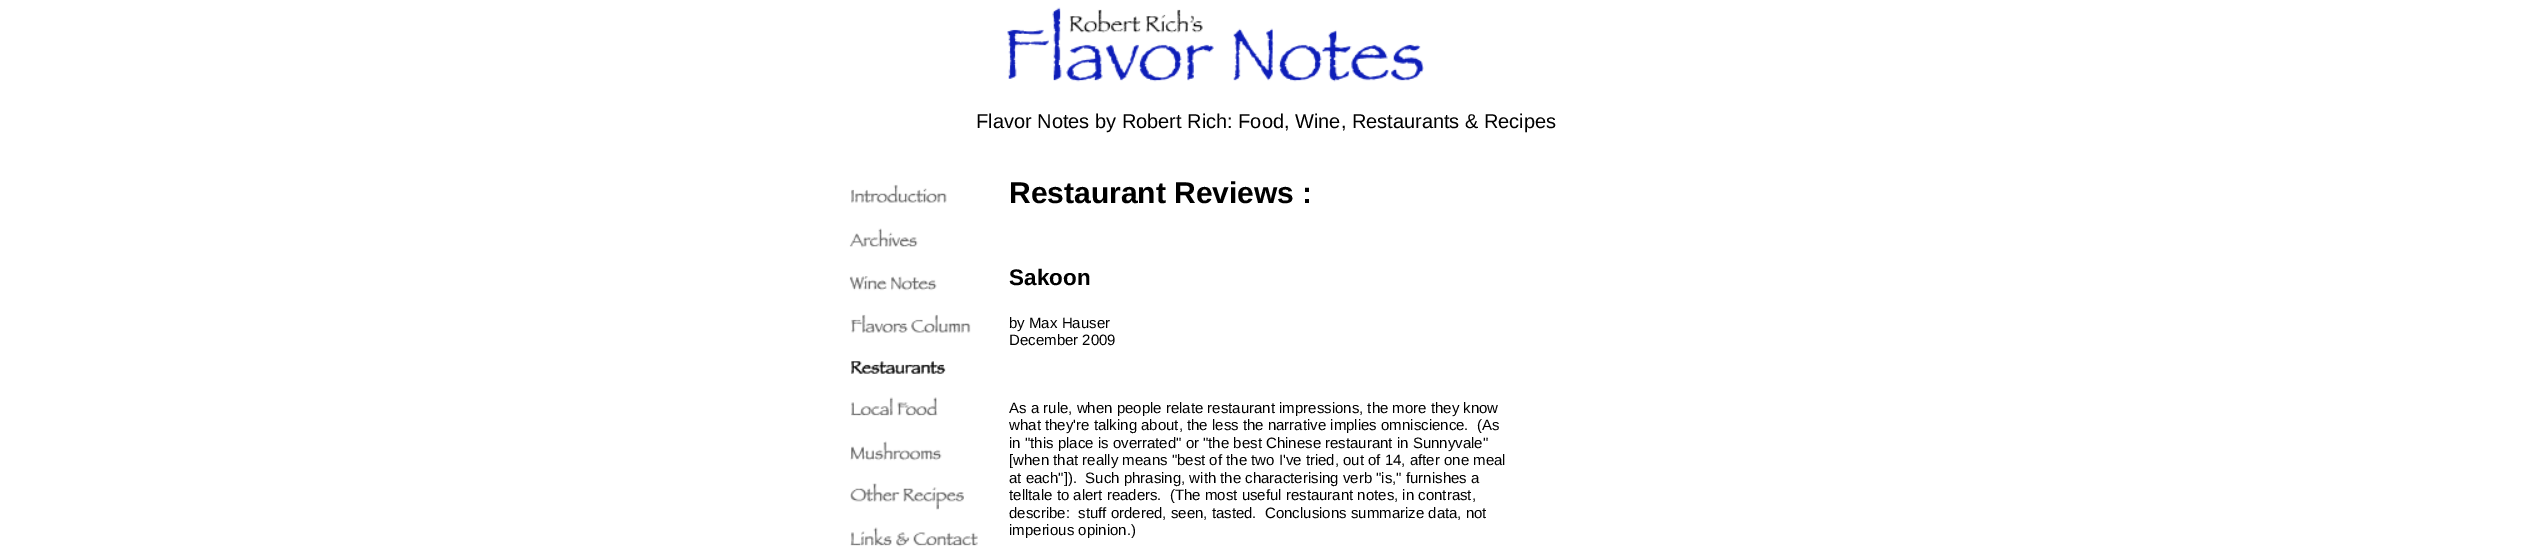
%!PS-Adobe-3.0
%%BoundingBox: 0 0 2527 558
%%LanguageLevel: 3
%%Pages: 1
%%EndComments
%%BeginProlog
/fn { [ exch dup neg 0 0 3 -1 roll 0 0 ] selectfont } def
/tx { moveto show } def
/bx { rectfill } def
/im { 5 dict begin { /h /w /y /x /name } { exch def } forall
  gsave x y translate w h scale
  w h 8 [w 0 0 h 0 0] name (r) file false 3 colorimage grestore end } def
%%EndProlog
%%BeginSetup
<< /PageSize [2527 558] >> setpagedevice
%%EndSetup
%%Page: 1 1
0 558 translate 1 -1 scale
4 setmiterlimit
1 setgray
0 0 2527 558 bx
(image0.raw) 1007 7 417 75 im
/LiberationSans-Regular 20 fn
0 setgray
(Flavor Notes by Robert Rich: Food, Wine, Restaurants & Recipes) 976 128 tx
(image1.raw) 851 184 96 19 im
(image2.raw) 849 228 69 20 im
(image3.raw) 849 276 88 15 im
(image4.raw) 851 314 120 19 im
(image5.raw) 851 361 95 13 im
(image6.raw) 851 397 87 19 im
(image7.raw) 850 441 92 20 im
(image8.raw) 850 483 114 27 im
(image9.raw) 850 527 128 20 im
/LiberationSans-Bold 30 fn
(Restaurant Reviews :) 1009 203 tx
/LiberationSans-Bold 22.5 fn
(Sakoon) 1009 285 tx
/LiberationSans-Regular 15 fn
(by Max Hauser) 1009 328 tx
(December 2009) 1009 345 tx
(As a rule, when people relate restaurant impressions, the more they know) 1009 413 tx
(what they're talking about, the less the narrative implies omniscience.  \(As) 1009 430 tx
(in "this place is overrated" or "the best Chinese restaurant in Sunnyvale") 1009 448 tx
([when that really means "best of the two I've tried, out of 14, after one meal) 1009 465 tx
(at each"]\).  Such phrasing, with the characterising verb "is," furnishes a) 1009 483 tx
(telltale to alert readers.  \(The most useful restaurant notes, in contrast,) 1009 500 tx
(describe:  stuff ordered, seen, tasted.  Conclusions summarize data, not) 1009 518 tx
(imperious opinion.\)) 1009 535 tx
showpage
%%EOF
